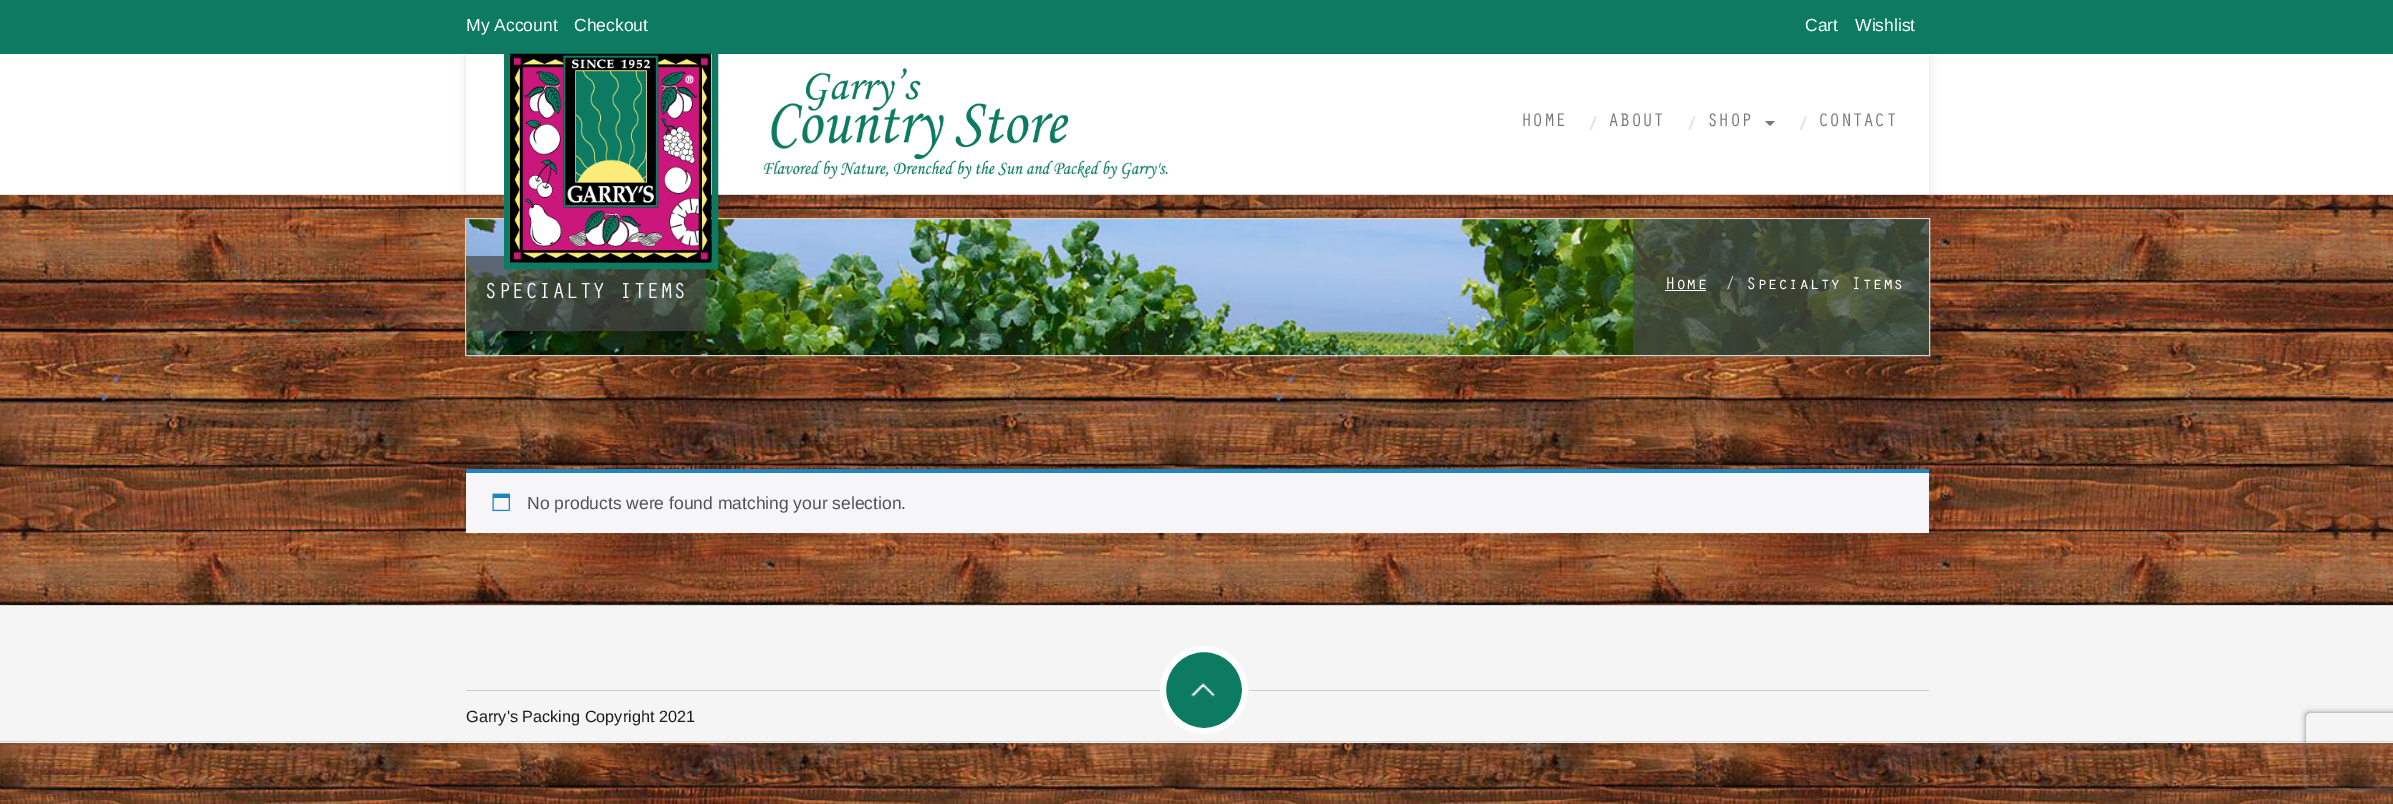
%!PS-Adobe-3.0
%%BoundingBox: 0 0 2393 804
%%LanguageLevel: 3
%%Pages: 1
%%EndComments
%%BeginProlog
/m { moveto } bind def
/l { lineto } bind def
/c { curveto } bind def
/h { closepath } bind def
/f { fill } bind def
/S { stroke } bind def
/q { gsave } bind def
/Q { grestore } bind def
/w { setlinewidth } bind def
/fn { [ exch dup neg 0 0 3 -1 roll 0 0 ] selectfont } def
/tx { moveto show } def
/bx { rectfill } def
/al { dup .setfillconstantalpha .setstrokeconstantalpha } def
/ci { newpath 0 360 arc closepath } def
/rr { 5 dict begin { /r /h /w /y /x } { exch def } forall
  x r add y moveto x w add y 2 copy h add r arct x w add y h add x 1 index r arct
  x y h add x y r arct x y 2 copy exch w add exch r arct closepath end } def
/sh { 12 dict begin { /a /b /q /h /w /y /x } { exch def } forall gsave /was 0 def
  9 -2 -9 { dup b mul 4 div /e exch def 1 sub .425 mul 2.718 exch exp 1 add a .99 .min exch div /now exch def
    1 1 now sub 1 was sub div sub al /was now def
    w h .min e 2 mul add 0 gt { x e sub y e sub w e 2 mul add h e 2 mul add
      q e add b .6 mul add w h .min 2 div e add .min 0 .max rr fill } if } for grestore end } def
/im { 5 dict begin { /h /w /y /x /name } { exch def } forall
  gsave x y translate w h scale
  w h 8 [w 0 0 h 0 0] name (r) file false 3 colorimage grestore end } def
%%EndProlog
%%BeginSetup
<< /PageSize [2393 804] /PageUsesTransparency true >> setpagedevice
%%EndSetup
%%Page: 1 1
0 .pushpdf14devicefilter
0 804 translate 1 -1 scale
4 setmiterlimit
1 setgray
0 0 2393 804 bx
(image0.raw) 0 195 2393 609 im
0.047 0.482 0.384 setrgbcolor
0 0 2393 54 bx
/LiberationSans-Regular 17.5 fn
1 setgray
(My Account) 466 31 tx
(Checkout) 574 31 tx
(Cart) 1805 31 tx
(Wishlist) 1855 31 tx
0.898 setgray
0 194 2393 1 bx
0 setgray
466 55 1463 140 0 6 0.1 sh
1 setgray
466 54 1463 140 bx
(image6.raw) 466 219 1463 138 im
0.831 setgray
465.5 218.5 1464 137 rectstroke
0.7 al
0.278 setgray
466 256 240 75 bx
1 al
0.047 0.482 0.384 setrgbcolor
6 w
507 51 208 215 rectstroke
(image1.raw) 510 53 202 210 im
(image2.raw) 763 68 405 111 im
/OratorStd-Regular 18.75 fn
0.467 setgray
(HOME) 1521 126 tx
(image3.raw) 1590 116 7 14 im
(ABOUT) 1608 126 tx
(image4.raw) 1688 116 8 15 im
(SHOP) 1707 126 tx
1765 121 m 1775 121 l 1770 126 l h f
(image5.raw) 1800 116 7 14 im
(CONTACT) 1818 126 tx
/OratorStd-Regular 22.5 fn
0.961 0.965 0.984 setrgbcolor
(SPECIALTY ITEMS) 484 298 tx
0.7 al
0.278 setgray
1633 219 296 136 bx
/OratorStd-Regular 17.5 fn
1 al
1 setgray
(Home) 1665 289 tx
1665 290 41 1 bx
(/ Specialty Items) 1725 289 tx
0.965 0.961 0.973 setrgbcolor
466 473 1463 60 bx
0.118 0.522 0.745 setrgbcolor
466 469 1463 4 bx
(image7.raw) 492 493 18 19 im
/LiberationSans-Regular 17.5 fn
0.318 setgray
(No products were found matching your selection.) 527 509 tx
0.961 setgray
0 606 2393 137 bx
0.839 setgray
0 605 2393 1 bx
0 741 2393 1 bx
0.8 setgray
466 690 1463 1 bx
/LiberationSans-Regular 16.25 fn
0.11 setgray
(Garry's Packing Copyright 2021) 466 722 tx
0.047 0.482 0.384 setrgbcolor
1204 690 41 ci q f Q
1 setgray
S
(image8.raw) 1191 682 24 15 im
q
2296 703 m 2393 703 l 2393 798 l 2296 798 l h 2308.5 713 m 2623.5 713 l 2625 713 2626 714 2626 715.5 c 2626 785.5 l 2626 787 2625 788 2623.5 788 c 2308.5 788 l 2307 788 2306 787 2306 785.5 c 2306 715.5 l 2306 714 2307 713 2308.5 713 c h eoclip newpath
0.502 setgray
2306 713 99 75 2.5 3 1 sh
Q
.poppdf14devicefilter showpage
%%EOF
